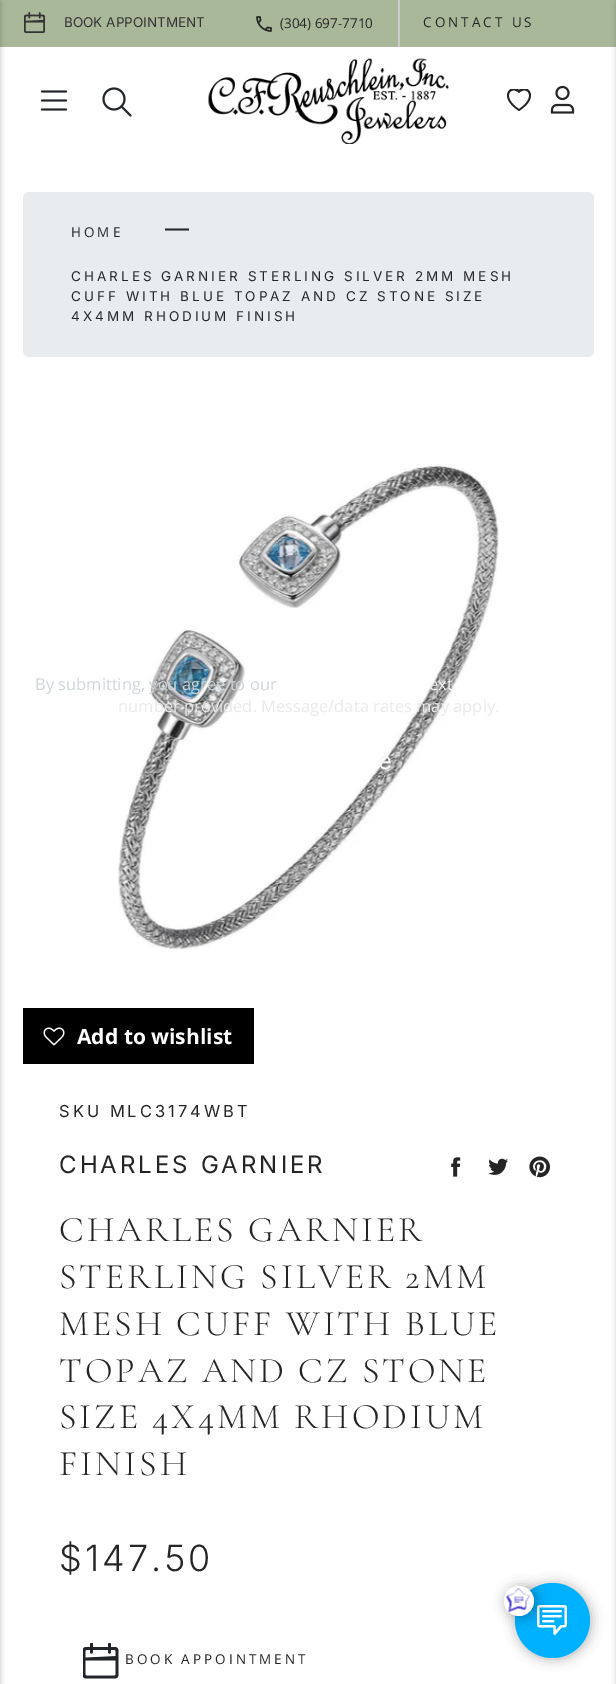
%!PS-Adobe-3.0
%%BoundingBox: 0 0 616 1684
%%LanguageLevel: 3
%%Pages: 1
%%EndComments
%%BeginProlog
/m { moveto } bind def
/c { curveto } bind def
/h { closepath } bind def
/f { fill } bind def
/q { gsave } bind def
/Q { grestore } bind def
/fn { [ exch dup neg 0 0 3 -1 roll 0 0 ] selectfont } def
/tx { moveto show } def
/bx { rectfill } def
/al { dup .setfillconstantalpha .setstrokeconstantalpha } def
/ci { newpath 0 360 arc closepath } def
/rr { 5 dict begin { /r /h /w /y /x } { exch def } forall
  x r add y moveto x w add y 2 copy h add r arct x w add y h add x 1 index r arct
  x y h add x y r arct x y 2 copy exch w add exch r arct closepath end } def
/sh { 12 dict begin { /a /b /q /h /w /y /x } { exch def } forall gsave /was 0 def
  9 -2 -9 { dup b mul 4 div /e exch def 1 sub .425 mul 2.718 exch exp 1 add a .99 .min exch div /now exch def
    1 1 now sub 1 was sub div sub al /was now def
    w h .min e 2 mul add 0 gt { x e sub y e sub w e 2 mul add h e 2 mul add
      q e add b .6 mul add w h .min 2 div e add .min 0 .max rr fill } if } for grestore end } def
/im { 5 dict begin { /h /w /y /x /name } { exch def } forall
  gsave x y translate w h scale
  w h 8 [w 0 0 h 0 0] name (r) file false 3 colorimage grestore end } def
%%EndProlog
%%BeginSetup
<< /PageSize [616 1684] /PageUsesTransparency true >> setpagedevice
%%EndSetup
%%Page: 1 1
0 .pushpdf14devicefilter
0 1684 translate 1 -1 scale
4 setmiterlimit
1 setgray
0 0 616 1684 bx
0.659 0.722 0.6 setrgbcolor
0 0 616 47 bx
0 setgray
-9 2 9 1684 0 3 0.25 sh
(image0.raw) 24 12 21 21 im
/Inter-Regular 13.5 fn
0.2 setgray
(BOOK APPOINTMENT) 64 27 tx
0.796 setgray
398 0 2 47 bx
(image1.raw) 256 16 16 16 im
/OpenSans-Regular 13.5 fn
0.145 setgray
(\(304\) 697-7710) 280 28 tx
423 27 m 3 0 (CONTACT US) ashow
(image2.raw) 40 90 28 21 im
(image3.raw) 102 87 30 30 im
(image4.raw) 208 58 241 86 im
q
507 89 24 24 rectclip
519 93 m 511 85 501 97 519 109 c 537 97 527 85 519 93 c h 519 111 m 496 96 512 83 519 90 c 526 83 542 96 519 111 c h f
Q
(image5.raw) 550 85 25 29 im
0 setgray
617 2 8 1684 0 3 0.25 sh
0.914 0.925 0.937 setrgbcolor
23 192 571 165 6 rr f
0.145 setgray
71 237 m 3 0 (HOME) ashow
/Inter-Regular 24 fn
(—) 165 237 tx
/Inter-Regular 13.5 fn
71 281 m 3 0 (CHARLES GARNIER STERLING SILVER 2MM MESH) ashow
71 301 m 3 0 (CUFF WITH BLUE TOPAZ AND CZ STONE SIZE) ashow
71 321 m 3 0 (4X4MM RHODIUM FINISH) ashow
(image6.raw) 118 464 381 486 im
0 setgray
23 1008 231 56 bx
(image7.raw) 43 1027 22 19 im
/OpenSans-Bold 21 fn
1 setgray
(Add to wishlist) 77 1044 tx
/Inter-Regular 16.5 fn
0.145 setgray
59 1117 m 3 0 (SKU MLC3174WBT) ashow
/Inter-Regular 24 fn
59 1173 m 3 0 (CHARLES GARNIER) ashow
(image8.raw) 451 1157 10 20 im
(image9.raw) 488 1158 20 17 im
(image10.raw) 529 1156 21 22 im
/CormorantGaramond-Light 36 fn
59 1241 m 3 0 (CHARLES GARNIER) ashow
59 1288 m 3 0 (STERLING SILVER 2MM) ashow
59 1335 m 3 0 (MESH CUFF WITH BLUE) ashow
59 1382 m 3 0 (TOPAZ AND CZ STONE) ashow
59 1428 m 3 0 (SIZE 4X4MM RHODIUM) ashow
59 1475 m 3 0 (FINISH) ashow
/Inter-Light 36 fn
59 1571 m 3 0 ($147.50) ashow
(image11.raw) 83 1643 36 36 im
/OpenSans-Regular 13.5 fn
125 1664 m 3 0 (BOOK APPOINTMENT) ashow
/OpenSans-Regular 16.5 fn
0.812 0.839 0.855 setrgbcolor
(By submitting, you agree to our) 35 690 tx
0.965 setgray
(ext) 429 690 tx
0.914 setgray
(number provided. Message/data rates may apply.) 118 712 tx
/Inter-Regular 24 fn
0.965 setgray
(e) 378 769 tx
0 setgray
516 1584 75 75 37.5 6 0.31 sh
0 0.694 1 setrgbcolor
552.5 1620.5 37.5 ci f
(image13.raw) 537 1605 30 30 im
0 setgray
506 1587 30 30 15 6 0.31 sh
1 setgray
519 1601 15 ci f
(image12.raw) 506 1588 24 25 im
.poppdf14devicefilter showpage
%%EOF
